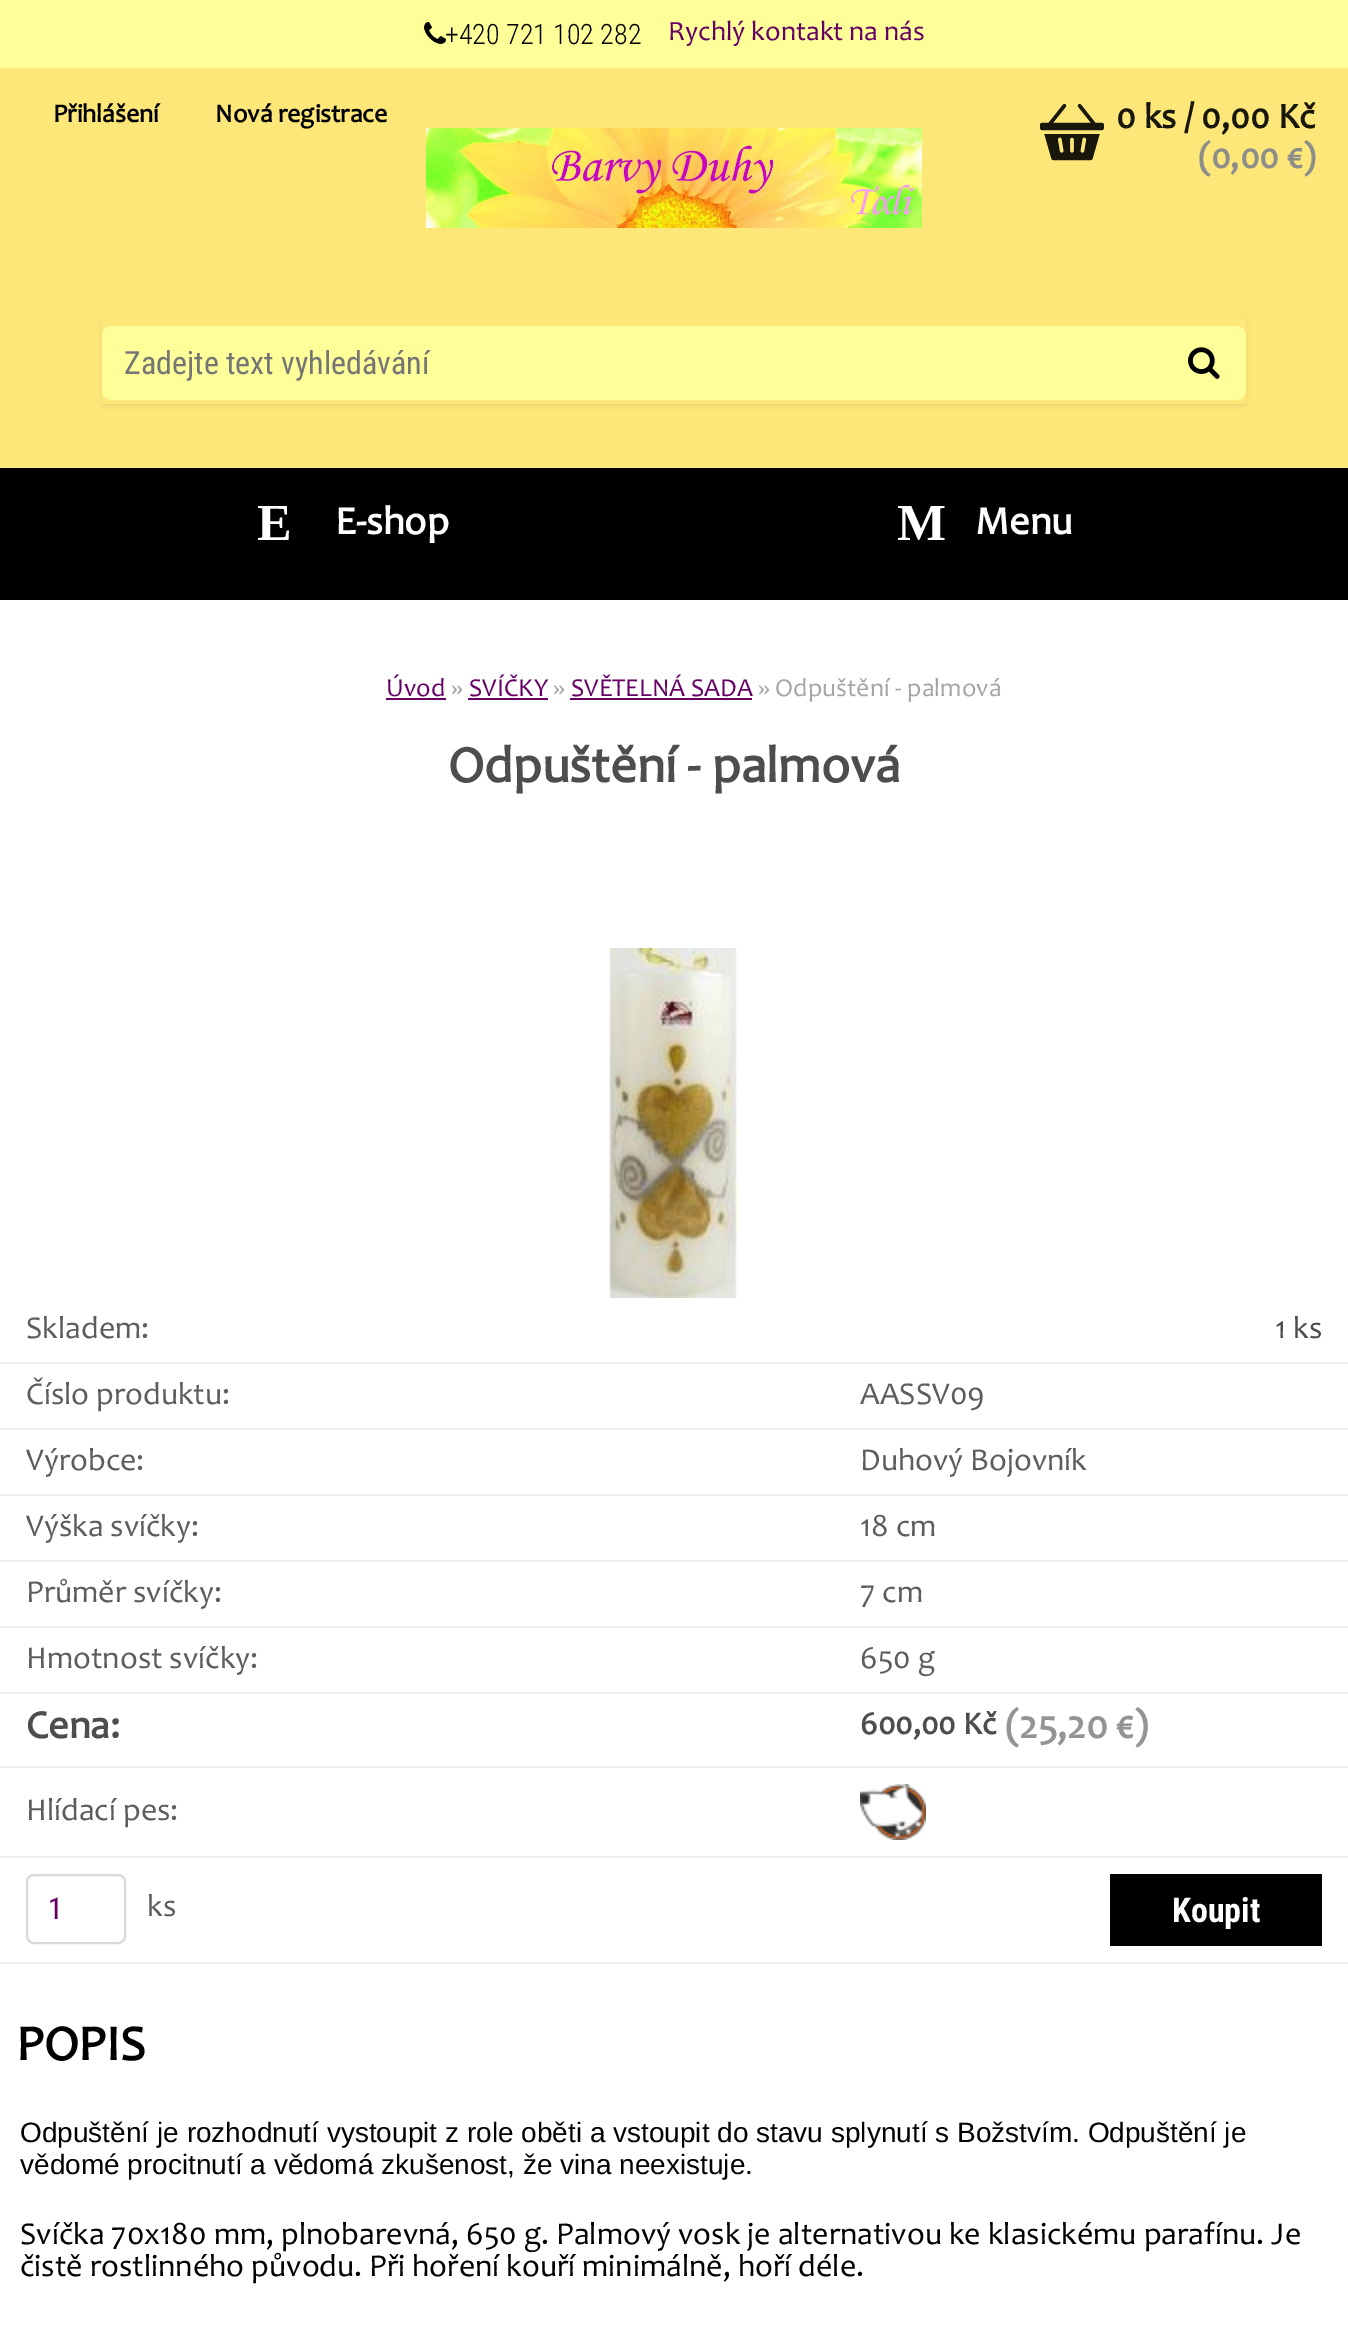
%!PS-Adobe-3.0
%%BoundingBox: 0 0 1348 2329
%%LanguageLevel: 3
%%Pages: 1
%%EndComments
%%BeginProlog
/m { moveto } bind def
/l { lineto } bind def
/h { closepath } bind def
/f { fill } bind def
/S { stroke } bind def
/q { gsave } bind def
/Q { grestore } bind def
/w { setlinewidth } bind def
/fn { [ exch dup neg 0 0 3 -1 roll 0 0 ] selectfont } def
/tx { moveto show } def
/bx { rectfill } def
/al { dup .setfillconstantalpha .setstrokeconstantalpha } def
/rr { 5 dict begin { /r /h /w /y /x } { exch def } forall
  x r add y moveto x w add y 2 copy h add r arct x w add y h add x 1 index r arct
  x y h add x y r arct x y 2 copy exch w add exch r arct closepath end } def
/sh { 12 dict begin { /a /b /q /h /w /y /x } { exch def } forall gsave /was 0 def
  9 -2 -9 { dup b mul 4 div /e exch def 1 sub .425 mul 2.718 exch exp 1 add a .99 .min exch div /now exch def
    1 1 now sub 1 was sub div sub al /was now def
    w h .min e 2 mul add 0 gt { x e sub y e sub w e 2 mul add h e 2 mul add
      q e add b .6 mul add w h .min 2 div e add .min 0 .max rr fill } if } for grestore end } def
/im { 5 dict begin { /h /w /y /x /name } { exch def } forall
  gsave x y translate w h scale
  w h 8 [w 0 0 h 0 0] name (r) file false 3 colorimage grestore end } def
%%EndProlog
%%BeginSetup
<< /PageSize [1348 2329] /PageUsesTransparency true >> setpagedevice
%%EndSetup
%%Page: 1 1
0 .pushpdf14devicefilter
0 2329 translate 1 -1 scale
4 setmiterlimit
0.996 1 0.6 setrgbcolor
0 0 1348 2329 bx
(image0.raw) 424 22 22 22 im
/RobotoCondensed-Light 28 fn
0 setgray
(+420 721 102 282) 445 44 tx
/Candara-Regular 28 fn
0.4 0 0.4 setrgbcolor
(Rychlý kontakt na nás) 668 40 tx
0.992 0.906 0.471 setrgbcolor
0 68 1348 400 bx
/Candara-Bold 26 fn
0 setgray
(Přihlášení) 53 122 tx
(Nová registrace) 215 122 tx
(image1.raw) 1040 104 64 57 im
/Candara-Bold 36 fn
0.098 0.09 0.047 setrgbcolor
(0 ks / 0,00 Kč) 1116 128 tx
0.553 0.553 0.537 setrgbcolor
(\(0,00 €\)) 1198 168 tx
(image2.raw) 426 128 496 100 im
q
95 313 m 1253 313 l 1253 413 l 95 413 l h 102 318 m 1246 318 l 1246 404 l 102 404 l h eoclip newpath
0 setgray
102 320 1144 86 0 2 0.07 sh
Q
0.996 1 0.6 setrgbcolor
102 326 1144 74 10 rr f
/RobotoCondensed-Regular 32 fn
0.459 setgray
(Zadejte text vyhledávání) 124 374 tx
(image3.raw) 1188 347 32 32 im
1 setgray
0 600 1348 1729 bx
0 setgray
0 468 1348 132 bx
/LiberationSerif-Bold 52 fn
1 setgray
(E) 257 540 tx
/Candara-Bold 40 fn
(E-shop) 335 534 tx
/LiberationSerif-Bold 52 fn
(M) 897 540 tx
/Candara-Bold 40 fn
(Menu) 975 534 tx
/Candara-Regular 26 fn
0.4 0 0.4 setrgbcolor
(Úvod) 386 696 tx
386 698 60 2 bx
0.647 setgray
(») 451 696 tx
0.4 0 0.4 setrgbcolor
(SVÍČKY) 469 696 tx
468 698 80 2 bx
0.647 setgray
(») 553 696 tx
0.4 0 0.4 setrgbcolor
(SVĚTELNÁ SADA) 571 696 tx
570 698 182 2 bx
0.647 setgray
(» Odpuštění - palmová) 758 696 tx
/Candara-Bold 52 fn
0.302 setgray
(Odpuštění - palmová) 448 782 tx
(image4.raw) 609 948 130 350 im
0.933 setgray
0 1362 1348 2 bx
/Candara-Regular 32 fn
0.365 setgray
(Skladem:) 26 1338 tx
0.302 setgray
(1 ks) 1275 1338 tx
0.933 setgray
0 1428 1348 2 bx
0.365 setgray
(Číslo produktu:) 26 1404 tx
(AASSV09) 860 1404 tx
0.933 setgray
0 1494 1348 2 bx
0.365 setgray
(Výrobce:) 26 1470 tx
(Duhový Bojovník) 860 1470 tx
0.933 setgray
0 1560 1348 2 bx
0.365 setgray
(Výška svíčky:) 26 1536 tx
(18 cm) 860 1536 tx
0.933 setgray
0 1626 1348 2 bx
0.365 setgray
(Průměr svíčky:) 26 1602 tx
(7 cm) 860 1602 tx
0.933 setgray
0 1692 1348 2 bx
0.365 setgray
(Hmotnost svíčky:) 26 1668 tx
(650 g) 860 1668 tx
0.933 setgray
0 1766 1348 2 bx
/Candara-Bold 40 fn
0.302 setgray
(Cena:) 26 1738 tx
/Candara-Bold 32 fn
(600,00 Kč) 860 1734 tx
/Candara-Bold 40 fn
0.58 setgray
(\(25,20 €\)) 1005 1738 tx
0.933 setgray
0 1856 1348 2 bx
/Candara-Regular 32 fn
0.365 setgray
(Hlídací pes:) 26 1820 tx
(image5.raw) 860 1784 66 56 im
0.933 setgray
0 1962 1348 2 bx
0.851 setgray
2 w
27 1875 98 68 7 rr S
/RobotoCondensed-Regular 30 fn
0.4 0 0.4 setrgbcolor
(1) 48 1919 tx
/Candara-Regular 32 fn
0.365 setgray
(ks) 147 1916 tx
0 setgray
1110 1874 212 72 bx
/RobotoCondensed-Bold 34 fn
1 setgray
(Koupit) 1172 1922 tx
/Candara-Bold 50 fn
0 setgray
(POPIS) 16 2060 tx
/LiberationSans-Regular 28 fn
(Odpuštění je rozhodnutí vystoupit z role oběti a vstoupit do stavu splynutí s Božstvím. Odpuštění je) 20 2142 tx
(vědomé procitnutí a vědomá zkušenost, že vina neexistuje.) 20 2174 tx
/Candara-Regular 32 fn
(Svíčka 70x180 mm, plnobarevná, 650 g. Palmový vosk je alternativou ke klasickému parafínu. Je) 20 2244 tx
(čistě rostlinného původu. Při hoření kouří minimálně, hoří déle.) 20 2276 tx
.poppdf14devicefilter showpage
%%EOF
